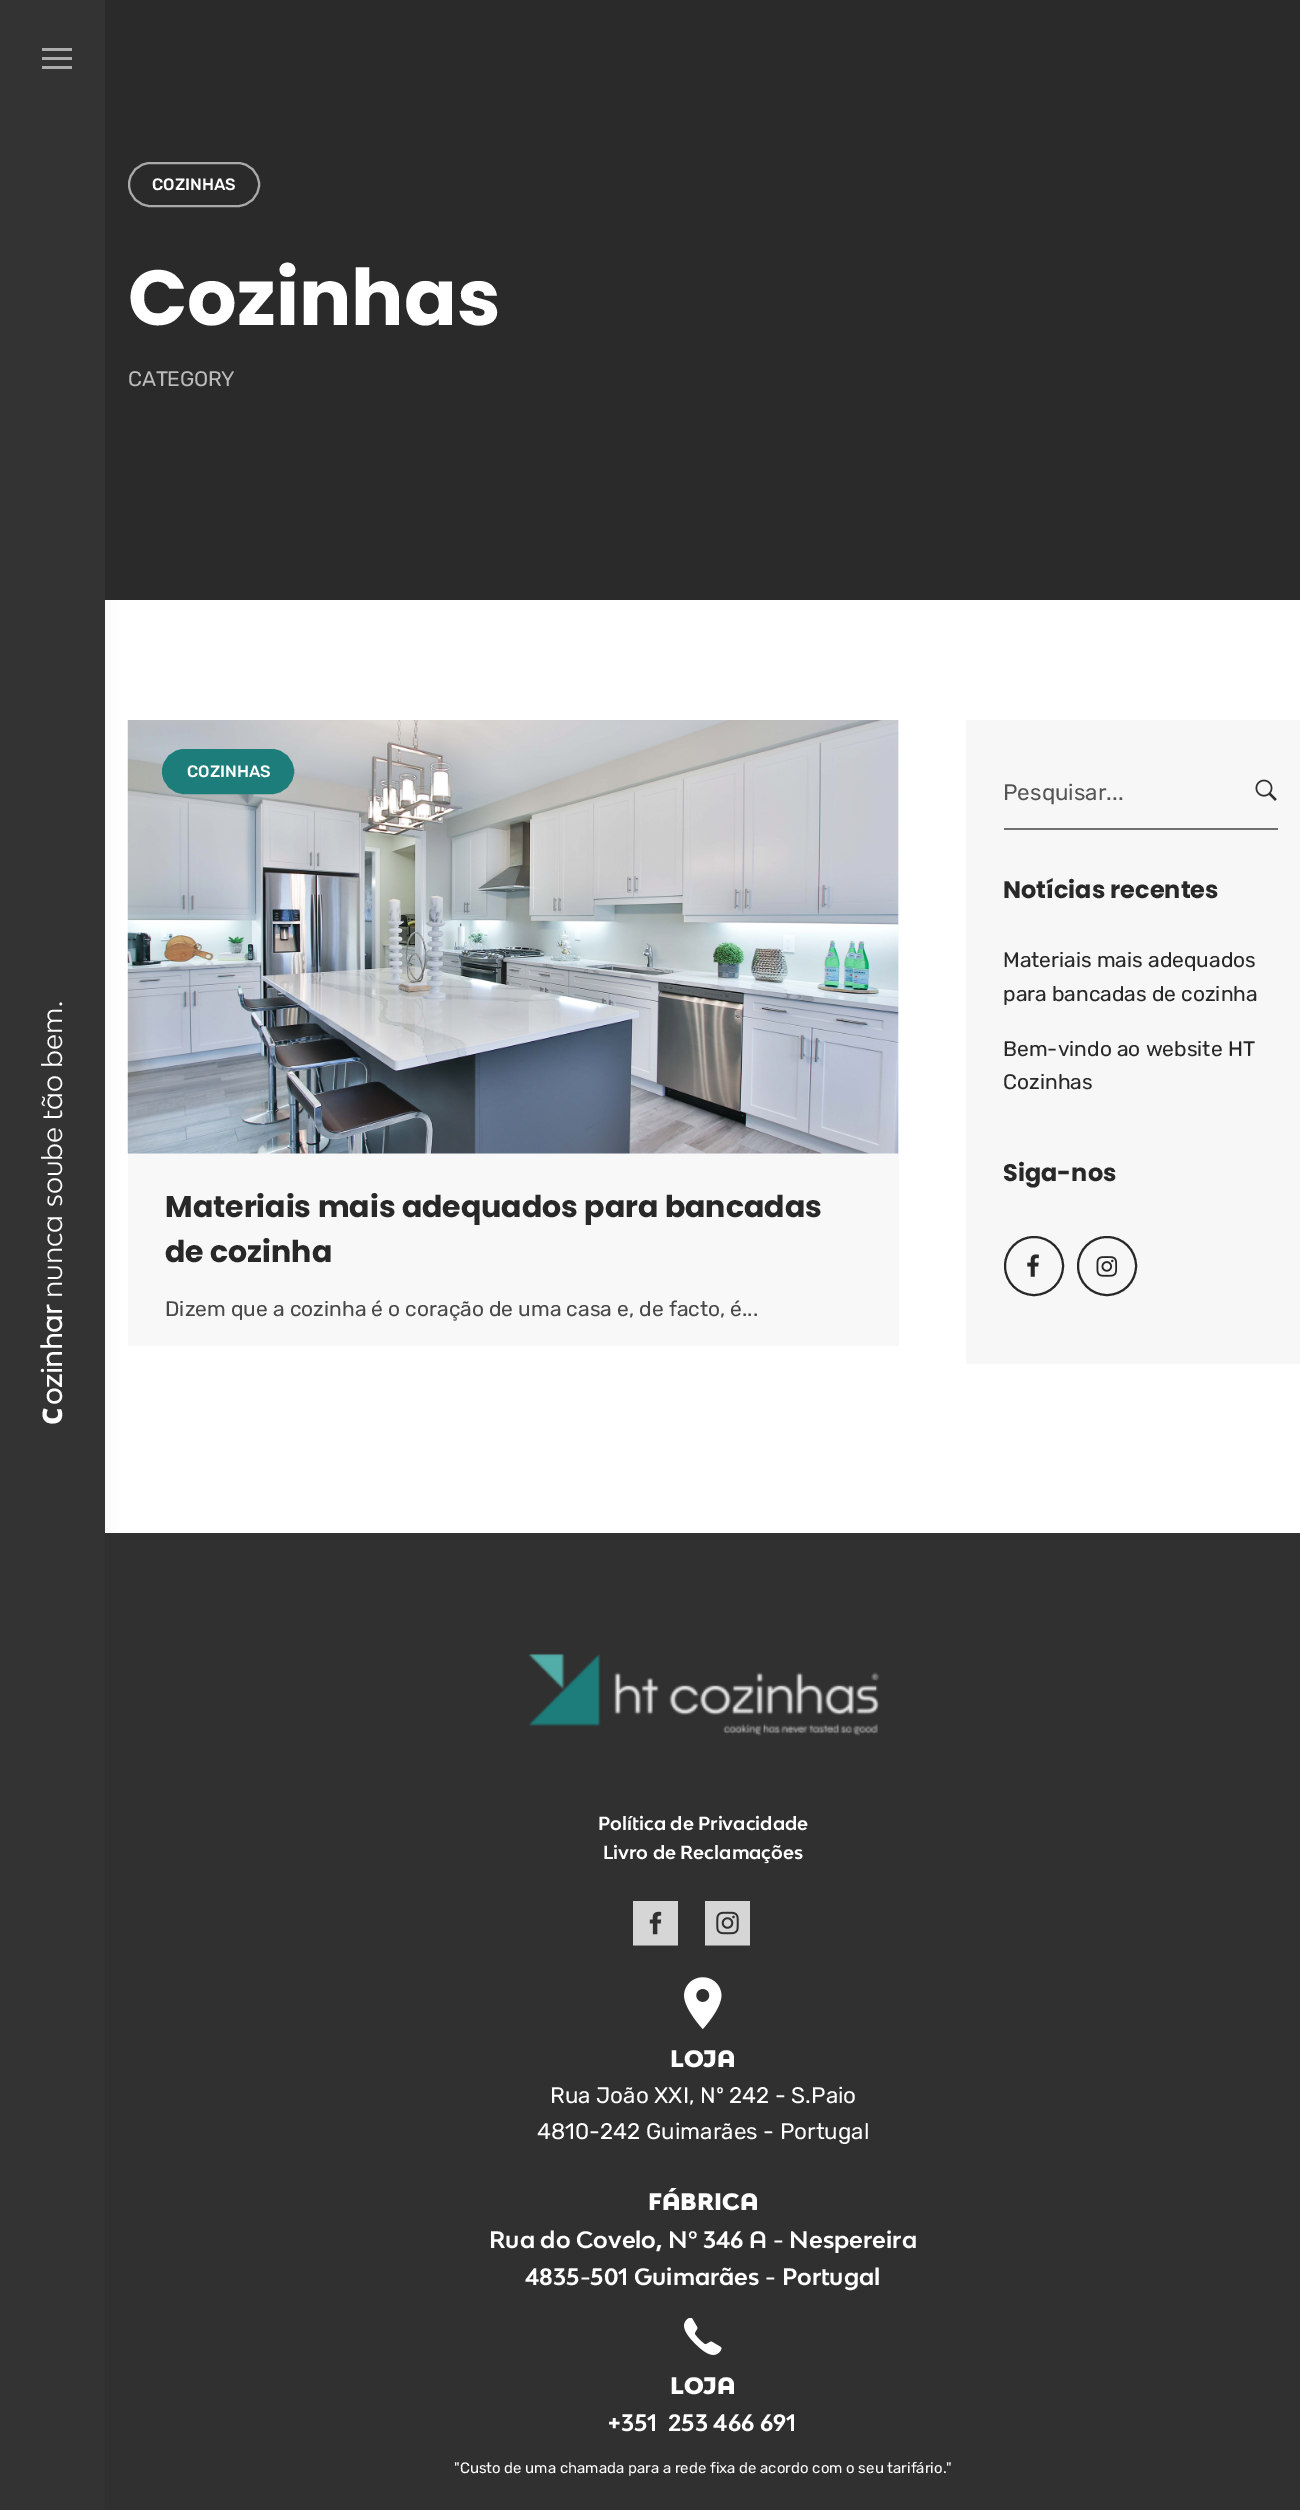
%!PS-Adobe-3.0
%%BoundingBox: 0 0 1300 2510
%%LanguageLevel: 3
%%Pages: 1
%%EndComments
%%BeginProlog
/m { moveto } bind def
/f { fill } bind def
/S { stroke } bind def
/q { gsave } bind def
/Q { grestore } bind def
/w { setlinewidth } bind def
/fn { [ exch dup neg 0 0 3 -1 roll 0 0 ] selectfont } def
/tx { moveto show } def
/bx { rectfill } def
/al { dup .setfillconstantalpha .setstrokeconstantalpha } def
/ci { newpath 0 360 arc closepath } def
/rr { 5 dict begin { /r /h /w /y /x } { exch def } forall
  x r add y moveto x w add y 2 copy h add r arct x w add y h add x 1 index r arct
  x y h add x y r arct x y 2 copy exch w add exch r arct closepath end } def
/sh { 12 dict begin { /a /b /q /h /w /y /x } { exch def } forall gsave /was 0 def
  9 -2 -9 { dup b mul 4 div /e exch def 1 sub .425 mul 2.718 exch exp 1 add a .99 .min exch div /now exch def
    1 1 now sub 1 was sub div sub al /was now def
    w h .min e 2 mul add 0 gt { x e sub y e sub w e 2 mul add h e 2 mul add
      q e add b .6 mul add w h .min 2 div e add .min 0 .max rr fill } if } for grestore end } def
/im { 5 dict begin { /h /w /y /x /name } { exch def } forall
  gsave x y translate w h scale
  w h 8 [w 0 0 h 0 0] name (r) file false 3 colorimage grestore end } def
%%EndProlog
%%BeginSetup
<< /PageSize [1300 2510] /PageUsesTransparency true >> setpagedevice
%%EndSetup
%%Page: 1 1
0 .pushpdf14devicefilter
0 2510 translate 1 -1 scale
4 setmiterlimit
1 setgray
0 0 1300 2510 bx
0.165 setgray
105 0 1195 600 bx
0.667 setgray
2 w
129 163 130 43 21.5 rr S
0.973 setgray
128 720 771 626 bx
(image0.raw) 127 720 772 434 im
0.188 setgray
105 1533 1195 977 bx
0 setgray
0 2 105 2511 0 9 0.06 sh
0.2 setgray
0 0 105 2510 bx
0.678 setgray
42 48 30 3 bx
42 66 30 3 bx
42 57 30 3 bx
/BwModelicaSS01-Regular 27 fn
1 setgray
q 62 1298 translate -90 rotate 0 0 m (nunca soube tão bem.) show Q
/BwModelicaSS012-Bold 27 fn
q 62 1405 translate -90 rotate 0 0 m (ozinhar) show Q
/NotoSans-Black 27 fn
q 62 1425 translate -90 rotate 0 0 m (C) show Q
/Rubik-Medium 16.5 fn
(COZINHAS) 152 190 tx
/Poppins-Bold 78 fn
(Cozinhas) 128 325 tx
/Rubik-Regular 21 fn
0.733 setgray
128 386 m -0.25 0 (CATEGORY) ashow
0.114 0.49 0.482 setrgbcolor
163 750 130 43 21.5 rr q f Q
S
/Rubik-Medium 16.5 fn
1 setgray
(COZINHAS) 187 777 tx
/Poppins-Bold 30 fn
0.157 setgray
(Materiais mais adequados para bancadas) 165 1217 tx
(de cozinha) 165 1262 tx
/Rubik-Regular 21 fn
0.286 setgray
(Dizem que a cozinha é o coração de uma casa e, de facto, é...) 165 1316 tx
0.969 setgray
966 720 334 644 bx
0.439 setgray
1004 828 274 2 bx
/Rubik-Regular 22.5 fn
0.333 setgray
(Pesquisar...) 1003 800 tx
(image1.raw) 1255 779 22 22 im
/Poppins-Bold 24 fn
0.157 setgray
(Notícias recentes) 1003 898 tx
/Rubik-Regular 21 fn
(Materiais mais adequados) 1003 967 tx
(para bancadas de cozinha) 1003 1001 tx
(Bem-vindo ao website HT) 1003 1056 tx
(Cozinhas) 1003 1089 tx
/Poppins-Bold 24 fn
(Siga-nos) 1003 1181 tx
1034 1266 29 ci S
(image2.raw) 1027 1254 12 23 im
1107 1266 29 ci S
(image3.raw) 1096 1256 22 21 im
(image4.raw) 528 1653 352 83 im
/BwModelicaSS01-Bold 18 fn
1 setgray
(Política de Privacidade) 598 1830 tx
(Livro de Reclamações) 603 1859 tx
(image5.raw) 633 1901 45 45 im
(image6.raw) 705 1901 45 45 im
(image7.raw) 684 1977 38 53 im
/BwModelicaSS01-Black 22.5 fn
(LOJA) 670 2067 tx
/Rubik-Regular 22.5 fn
(Rua João XXI, Nº 242 - S.Paio) 550 2103 tx
(4810-242 Guimarães - Portugal) 537 2139 tx
/BwModelicaSS01-Black 22.5 fn
(FÁBRICA) 648 2210 tx
/BwModelicaSS01-Bold 22.5 fn
(Rua do Covelo, Nº 346 A - Nespereira) 489 2248 tx
(4835-501 Guimarães - Portugal) 525 2285 tx
(image8.raw) 684 2318 38 37 im
/BwModelicaSS01-Black 22.5 fn
(LOJA) 670 2394 tx
/BwModelicaSS01-Bold 22.5 fn
(+351  253 466 691) 608 2431 tx
/Rubik-Regular 15 fn
("Custo de uma chamada para a rede fixa de acordo com o seu tarifário.") 454 2473 tx
.poppdf14devicefilter showpage
%%EOF
